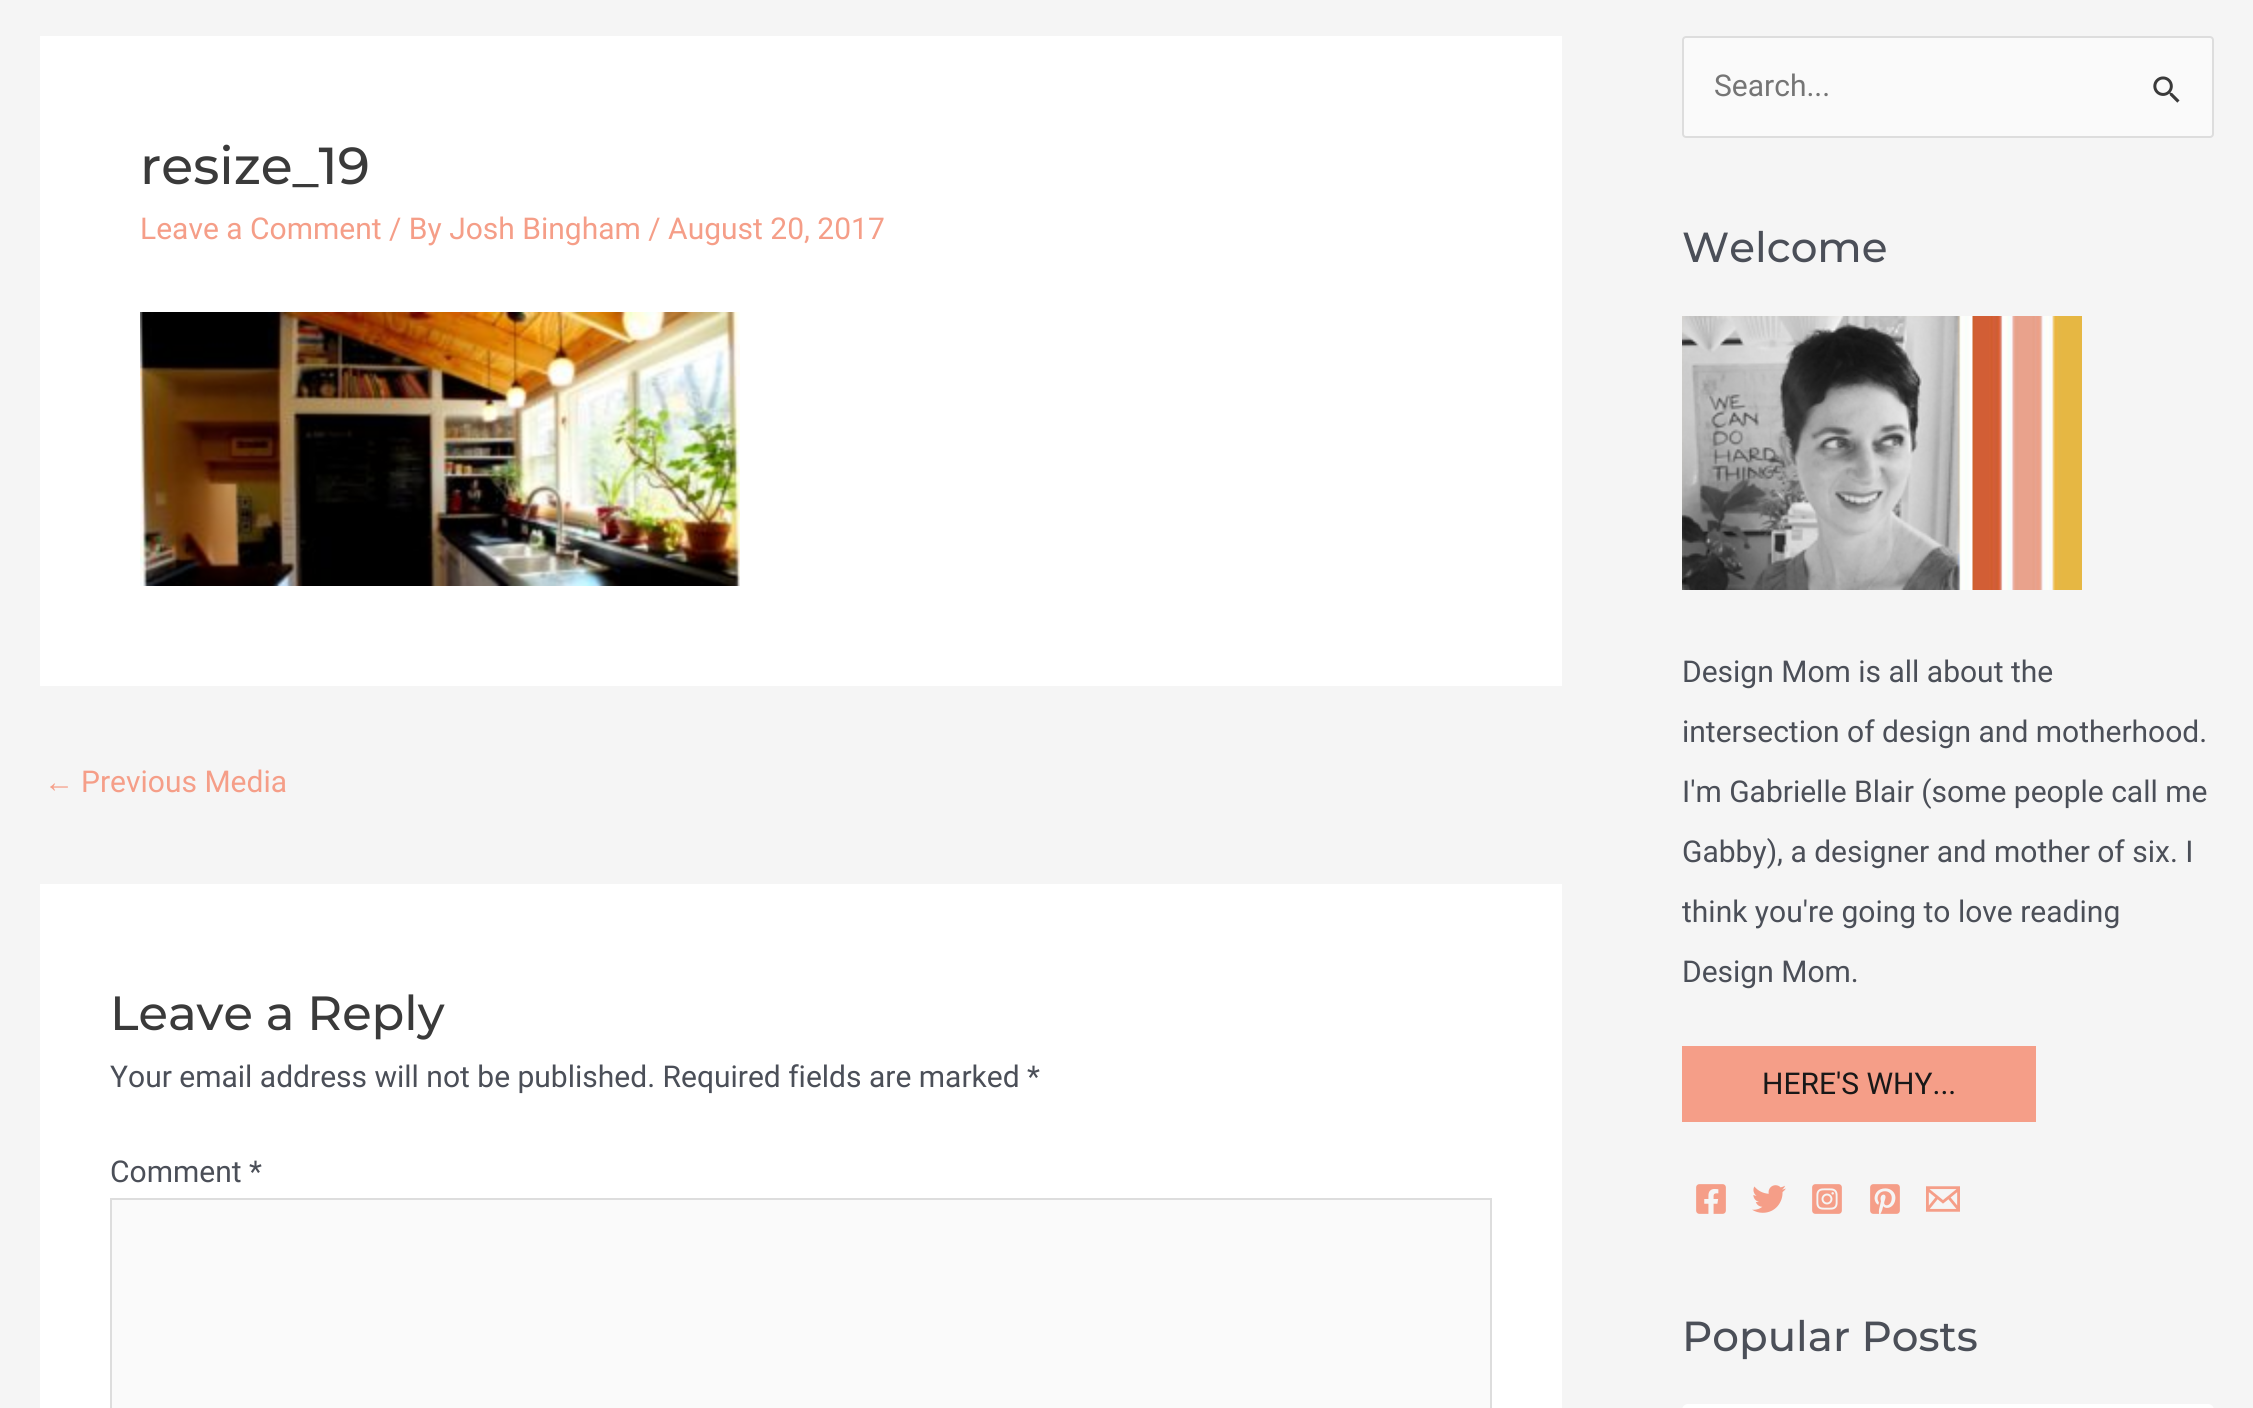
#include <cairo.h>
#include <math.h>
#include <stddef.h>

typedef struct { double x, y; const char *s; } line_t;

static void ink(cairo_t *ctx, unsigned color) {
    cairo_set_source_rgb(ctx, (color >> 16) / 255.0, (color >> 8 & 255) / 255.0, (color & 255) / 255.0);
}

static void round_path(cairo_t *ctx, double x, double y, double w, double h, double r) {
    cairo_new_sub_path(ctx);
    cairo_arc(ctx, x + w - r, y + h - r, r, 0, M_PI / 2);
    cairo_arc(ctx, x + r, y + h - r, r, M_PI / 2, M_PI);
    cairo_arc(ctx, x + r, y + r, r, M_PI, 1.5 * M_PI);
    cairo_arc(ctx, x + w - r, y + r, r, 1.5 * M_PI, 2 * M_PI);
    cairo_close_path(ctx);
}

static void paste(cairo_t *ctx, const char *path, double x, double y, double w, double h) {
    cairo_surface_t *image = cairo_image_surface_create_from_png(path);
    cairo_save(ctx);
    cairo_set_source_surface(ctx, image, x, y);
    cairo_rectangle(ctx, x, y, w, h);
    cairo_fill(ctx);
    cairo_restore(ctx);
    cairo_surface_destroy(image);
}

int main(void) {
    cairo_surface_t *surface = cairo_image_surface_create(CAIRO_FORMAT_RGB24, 2253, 1408);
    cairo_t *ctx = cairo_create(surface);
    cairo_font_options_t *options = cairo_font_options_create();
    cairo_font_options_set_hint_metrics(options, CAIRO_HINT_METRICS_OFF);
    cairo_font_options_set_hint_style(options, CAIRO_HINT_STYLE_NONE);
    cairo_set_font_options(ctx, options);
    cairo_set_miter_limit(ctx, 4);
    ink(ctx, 0xF5F5F5);
    cairo_paint(ctx);
    ink(ctx, 0xFFFFFF);
    cairo_rectangle(ctx, 40, 36, 1522, 650);
    cairo_fill(ctx);
    cairo_select_font_face(ctx, "Montserrat Thin", CAIRO_FONT_SLANT_NORMAL, CAIRO_FONT_WEIGHT_NORMAL);
    cairo_set_font_size(ctx, 52);
    ink(ctx, 0x3A3A3A);
    cairo_move_to(ctx, 140, 184);
    cairo_show_text(ctx, "resize_19");
    cairo_select_font_face(ctx, "Roboto", CAIRO_FONT_SLANT_NORMAL, CAIRO_FONT_WEIGHT_NORMAL);
    cairo_set_font_size(ctx, 30);
    ink(ctx, 0xF59E88);
    cairo_move_to(ctx, 140, 239);
    cairo_show_text(ctx, "Leave a Comment / By Josh Bingham / August 20, 2017");
    paste(ctx, "media/1.png", 140, 312, 600, 274);
    cairo_select_font_face(ctx, "Liberation Sans", CAIRO_FONT_SLANT_NORMAL, CAIRO_FONT_WEIGHT_NORMAL);
    cairo_move_to(ctx, 44, 792);
    cairo_show_text(ctx, "←");
    cairo_select_font_face(ctx, "Roboto", CAIRO_FONT_SLANT_NORMAL, CAIRO_FONT_WEIGHT_NORMAL);
    cairo_move_to(ctx, 81, 792);
    cairo_show_text(ctx, "Previous Media");
    ink(ctx, 0xFFFFFF);
    cairo_rectangle(ctx, 40, 884, 1522, 524);
    cairo_fill(ctx);
    cairo_select_font_face(ctx, "Montserrat Thin", CAIRO_FONT_SLANT_NORMAL, CAIRO_FONT_WEIGHT_NORMAL);
    cairo_set_font_size(ctx, 48);
    ink(ctx, 0x3A3A3A);
    cairo_move_to(ctx, 110, 1030);
    cairo_show_text(ctx, "Leave a Reply");
    cairo_select_font_face(ctx, "Roboto", CAIRO_FONT_SLANT_NORMAL, CAIRO_FONT_WEIGHT_NORMAL);
    cairo_set_font_size(ctx, 30);
    ink(ctx, 0x4B4F58);
    cairo_move_to(ctx, 110, 1087);
    cairo_show_text(ctx, "Your email address will not be published. Required fields are marked *");
    cairo_move_to(ctx, 110, 1182);
    cairo_show_text(ctx, "Comment *");
    ink(ctx, 0xFAFAFA);
    cairo_rectangle(ctx, 111, 1199, 1380, 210);
    cairo_fill_preserve(ctx);
    ink(ctx, 0xDDDDDD);
    cairo_stroke(ctx);
    ink(ctx, 0xFAFAFA);
    round_path(ctx, 1683, 37, 530, 100, 3);
    cairo_fill_preserve(ctx);
    ink(ctx, 0xDDDDDD);
    cairo_stroke(ctx);
    ink(ctx, 0x757575);
    cairo_move_to(ctx, 1714, 96);
    cairo_show_text(ctx, "Search...");
    paste(ctx, "media/2.png", 2153, 76, 27, 27);
    cairo_select_font_face(ctx, "Montserrat Thin", CAIRO_FONT_SLANT_NORMAL, CAIRO_FONT_WEIGHT_NORMAL);
    cairo_set_font_size(ctx, 42);
    ink(ctx, 0x4B4F58);
    cairo_move_to(ctx, 1682, 262);
    cairo_show_text(ctx, "Welcome");
    paste(ctx, "media/3.png", 1682, 316, 400, 274);
    cairo_select_font_face(ctx, "Roboto", CAIRO_FONT_SLANT_NORMAL, CAIRO_FONT_WEIGHT_NORMAL);
    cairo_set_font_size(ctx, 30);
    {
        static const line_t items[] = {
            {1682, 682, "Design Mom is all about the"},
            {1682, 742, "intersection of design and motherhood."},
            {1682, 802, "I'm Gabrielle Blair (some people call me"},
            {1682, 862, "Gabby), a designer and mother of six. I"},
            {1682, 922, "think you're going to love reading"},
            {1682, 982, "Design Mom."},
        };
        for (size_t i = 0; i < sizeof items / sizeof *items; i++) {
            cairo_move_to(ctx, items[i].x, items[i].y);
            cairo_show_text(ctx, items[i].s);
        }
    }
    ink(ctx, 0xF59E88);
    cairo_rectangle(ctx, 1682, 1046, 354, 76);
    cairo_fill(ctx);
    ink(ctx, 0x181818);
    cairo_move_to(ctx, 1762, 1094);
    cairo_show_text(ctx, "HERE'S WHY...");
    paste(ctx, "media/4.png", 1696, 1184, 30, 30);
    paste(ctx, "media/5.png", 1752, 1185, 34, 28);
    paste(ctx, "media/6.png", 1812, 1184, 30, 30);
    paste(ctx, "media/7.png", 1870, 1184, 30, 30);
    paste(ctx, "media/8.png", 1926, 1186, 34, 26);
    cairo_select_font_face(ctx, "Montserrat Thin", CAIRO_FONT_SLANT_NORMAL, CAIRO_FONT_WEIGHT_NORMAL);
    cairo_set_font_size(ctx, 42);
    ink(ctx, 0x4B4F58);
    cairo_move_to(ctx, 1682, 1351);
    cairo_show_text(ctx, "Popular Posts");
    ink(ctx, 0xFFFFFF);
    round_path(ctx, 1682, 1404, 532, 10, 6);
    cairo_fill(ctx);
    cairo_surface_write_to_png(surface, "image.png");
    cairo_font_options_destroy(options);
    cairo_destroy(ctx);
    cairo_surface_destroy(surface);
    return 0;
}
